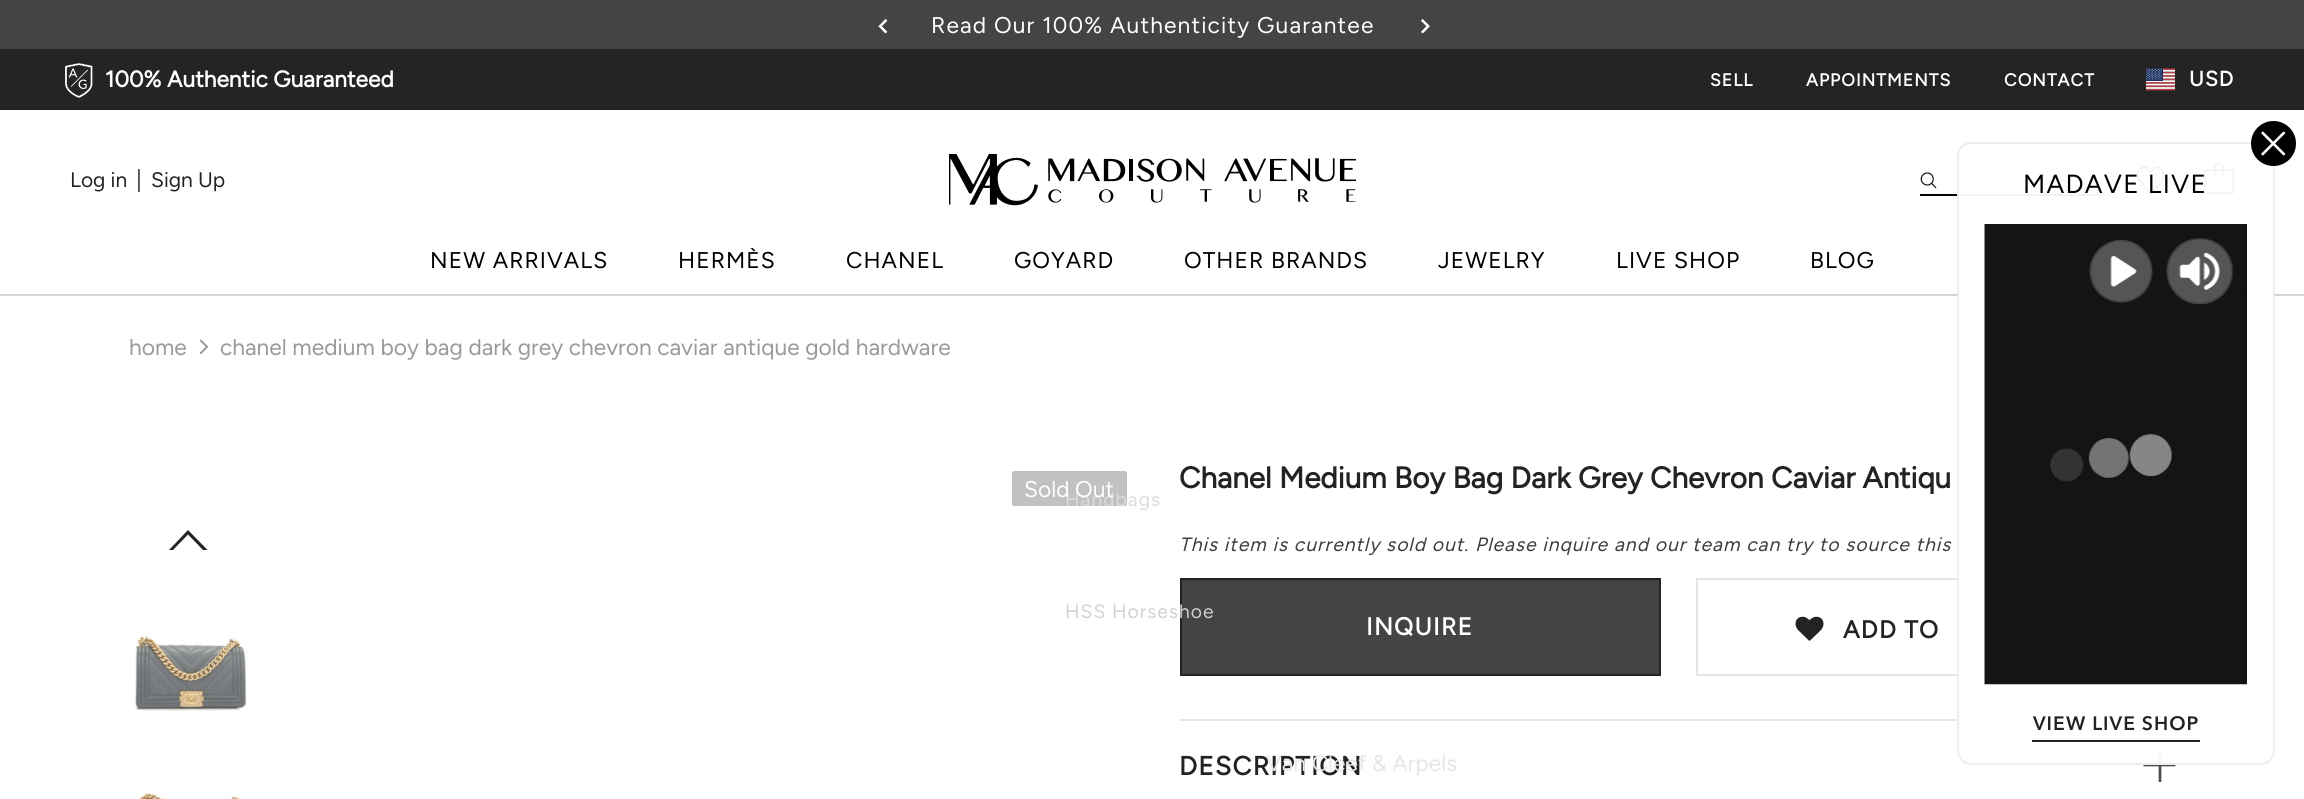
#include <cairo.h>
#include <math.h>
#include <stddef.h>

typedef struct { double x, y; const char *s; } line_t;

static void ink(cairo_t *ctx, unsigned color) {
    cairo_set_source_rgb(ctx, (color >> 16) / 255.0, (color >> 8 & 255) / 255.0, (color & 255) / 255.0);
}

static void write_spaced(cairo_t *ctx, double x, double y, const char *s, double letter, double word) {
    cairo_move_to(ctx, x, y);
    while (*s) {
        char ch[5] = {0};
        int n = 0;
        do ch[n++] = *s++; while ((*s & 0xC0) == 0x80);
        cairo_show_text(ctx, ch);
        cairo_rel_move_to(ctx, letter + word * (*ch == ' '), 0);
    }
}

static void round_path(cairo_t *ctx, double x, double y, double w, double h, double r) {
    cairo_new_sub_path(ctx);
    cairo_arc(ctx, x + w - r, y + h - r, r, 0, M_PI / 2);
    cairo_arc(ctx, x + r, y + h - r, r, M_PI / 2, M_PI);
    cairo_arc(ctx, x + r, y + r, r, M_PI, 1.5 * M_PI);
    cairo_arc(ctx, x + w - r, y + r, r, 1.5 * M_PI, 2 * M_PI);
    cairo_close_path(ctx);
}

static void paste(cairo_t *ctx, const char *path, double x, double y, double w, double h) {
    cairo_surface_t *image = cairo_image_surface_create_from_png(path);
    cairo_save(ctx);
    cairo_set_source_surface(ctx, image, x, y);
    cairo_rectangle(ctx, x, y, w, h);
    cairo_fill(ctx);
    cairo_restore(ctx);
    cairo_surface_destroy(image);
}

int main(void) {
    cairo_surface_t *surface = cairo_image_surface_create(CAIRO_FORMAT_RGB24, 2304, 799);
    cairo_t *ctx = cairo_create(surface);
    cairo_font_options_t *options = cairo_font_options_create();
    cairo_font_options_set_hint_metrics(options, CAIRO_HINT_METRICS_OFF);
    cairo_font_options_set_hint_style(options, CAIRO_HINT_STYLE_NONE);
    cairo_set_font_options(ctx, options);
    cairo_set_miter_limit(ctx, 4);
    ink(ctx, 0xFFFFFF);
    cairo_paint(ctx);
    ink(ctx, 0x444444);
    cairo_rectangle(ctx, 0, 0, 2304, 49);
    cairo_fill(ctx);
    paste(ctx, "media/1.png", 878, 19, 10, 14);
    cairo_select_font_face(ctx, "Figtree", CAIRO_FONT_SLANT_NORMAL, CAIRO_FONT_WEIGHT_NORMAL);
    cairo_set_font_size(ctx, 22.75);
    ink(ctx, 0xFFFFFF);
    write_spaced(ctx, 931, 33, "Read Our 100% Authenticity Guarantee", 1.15, 0);
    paste(ctx, "media/2.png", 1421, 19, 9, 14);
    ink(ctx, 0x242424);
    cairo_rectangle(ctx, 0, 49, 2304, 61);
    cairo_fill(ctx);
    paste(ctx, "media/3.png", 65, 63, 28, 35);
    cairo_select_font_face(ctx, "Figtree", CAIRO_FONT_SLANT_NORMAL, CAIRO_FONT_WEIGHT_BOLD);
    ink(ctx, 0xFFFFFF);
    cairo_move_to(ctx, 105, 87);
    cairo_show_text(ctx, "100% Authentic Guaranteed");
    cairo_set_font_size(ctx, 17.5);
    {
        static const line_t items[] = {
            {1710, 86, "SELL"},
            {1806, 86, "APPOINTMENTS"},
            {2004, 86, "CONTACT"},
        };
        for (size_t i = 0; i < sizeof items / sizeof *items; i++) {
            write_spaced(ctx, items[i].x, items[i].y, items[i].s, 1.05, 0);
        }
    }
    paste(ctx, "media/4.png", 2146, 68, 29, 23);
    cairo_set_font_size(ctx, 21);
    write_spaced(ctx, 2189, 86, "USD", 1.05, 0);
    ink(ctx, 0x000000);
    cairo_rectangle(ctx, 1920, 194, 182, 2);
    cairo_fill(ctx);
    paste(ctx, "media/5.png", 1920, 172, 17, 17);
    paste(ctx, "media/6.png", 2137, 166, 28, 28);
    paste(ctx, "media/7.png", 2204, 163, 31, 31);
    cairo_select_font_face(ctx, "Figtree", CAIRO_FONT_SLANT_NORMAL, CAIRO_FONT_WEIGHT_NORMAL);
    ink(ctx, 0x232323);
    cairo_move_to(ctx, 70, 187);
    cairo_show_text(ctx, "Log in");
    cairo_set_font_size(ctx, 22.75);
    ink(ctx, 0x3C3C3C);
    cairo_move_to(ctx, 136, 187);
    cairo_show_text(ctx, "|");
    cairo_set_font_size(ctx, 21);
    ink(ctx, 0x232323);
    cairo_move_to(ctx, 151, 187);
    cairo_show_text(ctx, "Sign Up");
    paste(ctx, "media/8.png", 949, 154, 407, 52);
    ink(ctx, 0xD7D4D4);
    cairo_rectangle(ctx, 0, 294, 2304, 2);
    cairo_fill(ctx);
    cairo_set_font_size(ctx, 22.75);
    ink(ctx, 0x000000);
    write_spaced(ctx, 430, 268, "NEW ARRIVALS", 1.05, 0);
    write_spaced(ctx, 678, 268, "HERMÈS", 1.05, 0);
    ink(ctx, 0x444444);
    cairo_rectangle(ctx, 1181, 579, 479, 96);
    cairo_fill_preserve(ctx);
    ink(ctx, 0x232323);
    cairo_stroke(ctx);
    cairo_set_font_size(ctx, 19.25);
    ink(ctx, 0xD1D1D1);
    write_spaced(ctx, 1065, 618, "HSS Horseshoe", 1.05, 0);
    cairo_set_font_size(ctx, 22.75);
    ink(ctx, 0x000000);
    write_spaced(ctx, 846, 268, "CHANEL", 1.05, 0);
    ink(ctx, 0xC1C1C1);
    round_path(ctx, 1012, 471, 115, 35, 2);
    cairo_fill(ctx);
    cairo_set_font_size(ctx, 19.25);
    ink(ctx, 0xDBDBDB);
    write_spaced(ctx, 1065, 506, "Handbags", 1.05, 0);
    cairo_set_font_size(ctx, 22.75);
    ink(ctx, 0x000000);
    {
        static const line_t items[] = {
            {1014, 268, "GOYARD"},
            {1184, 268, "OTHER BRANDS"},
            {1616, 268, "LIVE SHOP"},
            {1810, 268, "BLOG"},
            {1438, 268, "JEWELRY"},
        };
        for (size_t i = 0; i < sizeof items / sizeof *items; i++) {
            write_spaced(ctx, items[i].x, items[i].y, items[i].s, 1.05, 0);
        }
    }
    cairo_select_font_face(ctx, "Figtree", CAIRO_FONT_SLANT_NORMAL, CAIRO_FONT_WEIGHT_BOLD);
    cairo_set_font_size(ctx, 26.25);
    ink(ctx, 0x232323);
    write_spaced(ctx, 1179, 775, "DESCRIPTION", 1.25, 0);
    cairo_select_font_face(ctx, "Figtree", CAIRO_FONT_SLANT_NORMAL, CAIRO_FONT_WEIGHT_NORMAL);
    cairo_set_font_size(ctx, 22.75);
    ink(ctx, 0xE6E6E6);
    cairo_move_to(ctx, 1266, 771);
    cairo_show_text(ctx, "Van Cleef & Arpels");
    ink(ctx, 0x999999);
    cairo_move_to(ctx, 129, 355);
    cairo_show_text(ctx, "home");
    paste(ctx, "media/9.png", 199, 339, 10, 15);
    cairo_move_to(ctx, 220, 355);
    cairo_show_text(ctx, "chanel medium boy bag dark grey chevron caviar antique gold hardware");
    ink(ctx, 0xFFFFFF);
    cairo_move_to(ctx, 1024, 497);
    cairo_show_text(ctx, "Sold Out");
    ink(ctx, 0x232323);
    cairo_new_path(ctx);
    cairo_move_to(ctx, 188, 530);
    cairo_line_to(ctx, 169, 550);
    cairo_line_to(ctx, 173, 550);
    cairo_line_to(ctx, 188, 534.5);
    cairo_line_to(ctx, 203, 550);
    cairo_line_to(ctx, 207.5, 550);
    cairo_close_path(ctx);
    cairo_fill(ctx);
    paste(ctx, "media/10.png", 135, 635, 112, 76);
    paste(ctx, "media/11.png", 139, 792, 101, 7);
    cairo_select_font_face(ctx, "Figtree", CAIRO_FONT_SLANT_NORMAL, CAIRO_FONT_WEIGHT_BOLD);
    cairo_set_font_size(ctx, 29.75);
    cairo_move_to(ctx, 1179, 488);
    cairo_show_text(ctx, "Chanel Medium Boy Bag Dark Grey Chevron Caviar Antiqu");
    cairo_select_font_face(ctx, "Figtree", CAIRO_FONT_SLANT_ITALIC, CAIRO_FONT_WEIGHT_NORMAL);
    cairo_set_font_size(ctx, 19.25);
    ink(ctx, 0x3C3C3C);
    write_spaced(ctx, 1179, 551, "This item is currently sold out. Please inquire and our team can try to source this", 1.05, 0);
    cairo_select_font_face(ctx, "Figtree", CAIRO_FONT_SLANT_NORMAL, CAIRO_FONT_WEIGHT_BOLD);
    cairo_set_font_size(ctx, 24.5);
    ink(ctx, 0xFFFFFF);
    write_spaced(ctx, 1366, 635, "INQUIRE", 1.25, 0);
    cairo_rectangle(ctx, 1697, 579, 479, 96);
    ink(ctx, 0xE6E6E6);
    cairo_stroke(ctx);
    paste(ctx, "media/12.png", 1795, 616, 29, 25);
    ink(ctx, 0x232323);
    write_spaced(ctx, 1843, 638, "ADD TO", 1.25, 0);
    ink(ctx, 0xE6E6E6);
    cairo_rectangle(ctx, 1180, 719, 997, 2);
    cairo_fill(ctx);
    cairo_new_path(ctx);
    cairo_move_to(ctx, 2143.5, 765);
    cairo_line_to(ctx, 2175.5, 765);
    cairo_move_to(ctx, 2160, 749.5);
    cairo_line_to(ctx, 2160, 782);
    ink(ctx, 0x4D4D4D);
    cairo_set_line_width(ctx, 2.7);
    cairo_stroke(ctx);
    cairo_set_source_rgba(ctx, 1, 1, 1, 0.95);
    round_path(ctx, 1958, 143, 316, 621, 13);
    cairo_fill_preserve(ctx);
    ink(ctx, 0xEEEEEE);
    cairo_set_line_width(ctx, 2);
    cairo_stroke(ctx);
    ink(ctx, 0x000000);
    cairo_arc(ctx, 2273.5, 143.5, 22.5, 0, 2 * M_PI);
    cairo_fill(ctx);
    paste(ctx, "media/13.png", 2261, 131, 25, 25);
    cairo_select_font_face(ctx, "Figtree", CAIRO_FONT_SLANT_NORMAL, CAIRO_FONT_WEIGHT_NORMAL);
    cairo_set_font_size(ctx, 26.25);
    write_spaced(ctx, 2023, 193, "MADAVE LIVE", 1.25, 0);
    paste(ctx, "media/14.png", 1984, 224, 263, 461);
    cairo_select_font_face(ctx, "Avenir Next SemiBold", CAIRO_FONT_SLANT_NORMAL, CAIRO_FONT_WEIGHT_NORMAL);
    cairo_set_font_size(ctx, 19.25);
    ink(ctx, 0x232323);
    write_spaced(ctx, 2033, 730, "VIEW LIVE SHOP", 1.05, 0);
    ink(ctx, 0x242424);
    cairo_rectangle(ctx, 2032, 740, 168, 2);
    cairo_fill(ctx);
    cairo_surface_write_to_png(surface, "image.png");
    cairo_font_options_destroy(options);
    cairo_destroy(ctx);
    cairo_surface_destroy(surface);
    return 0;
}
